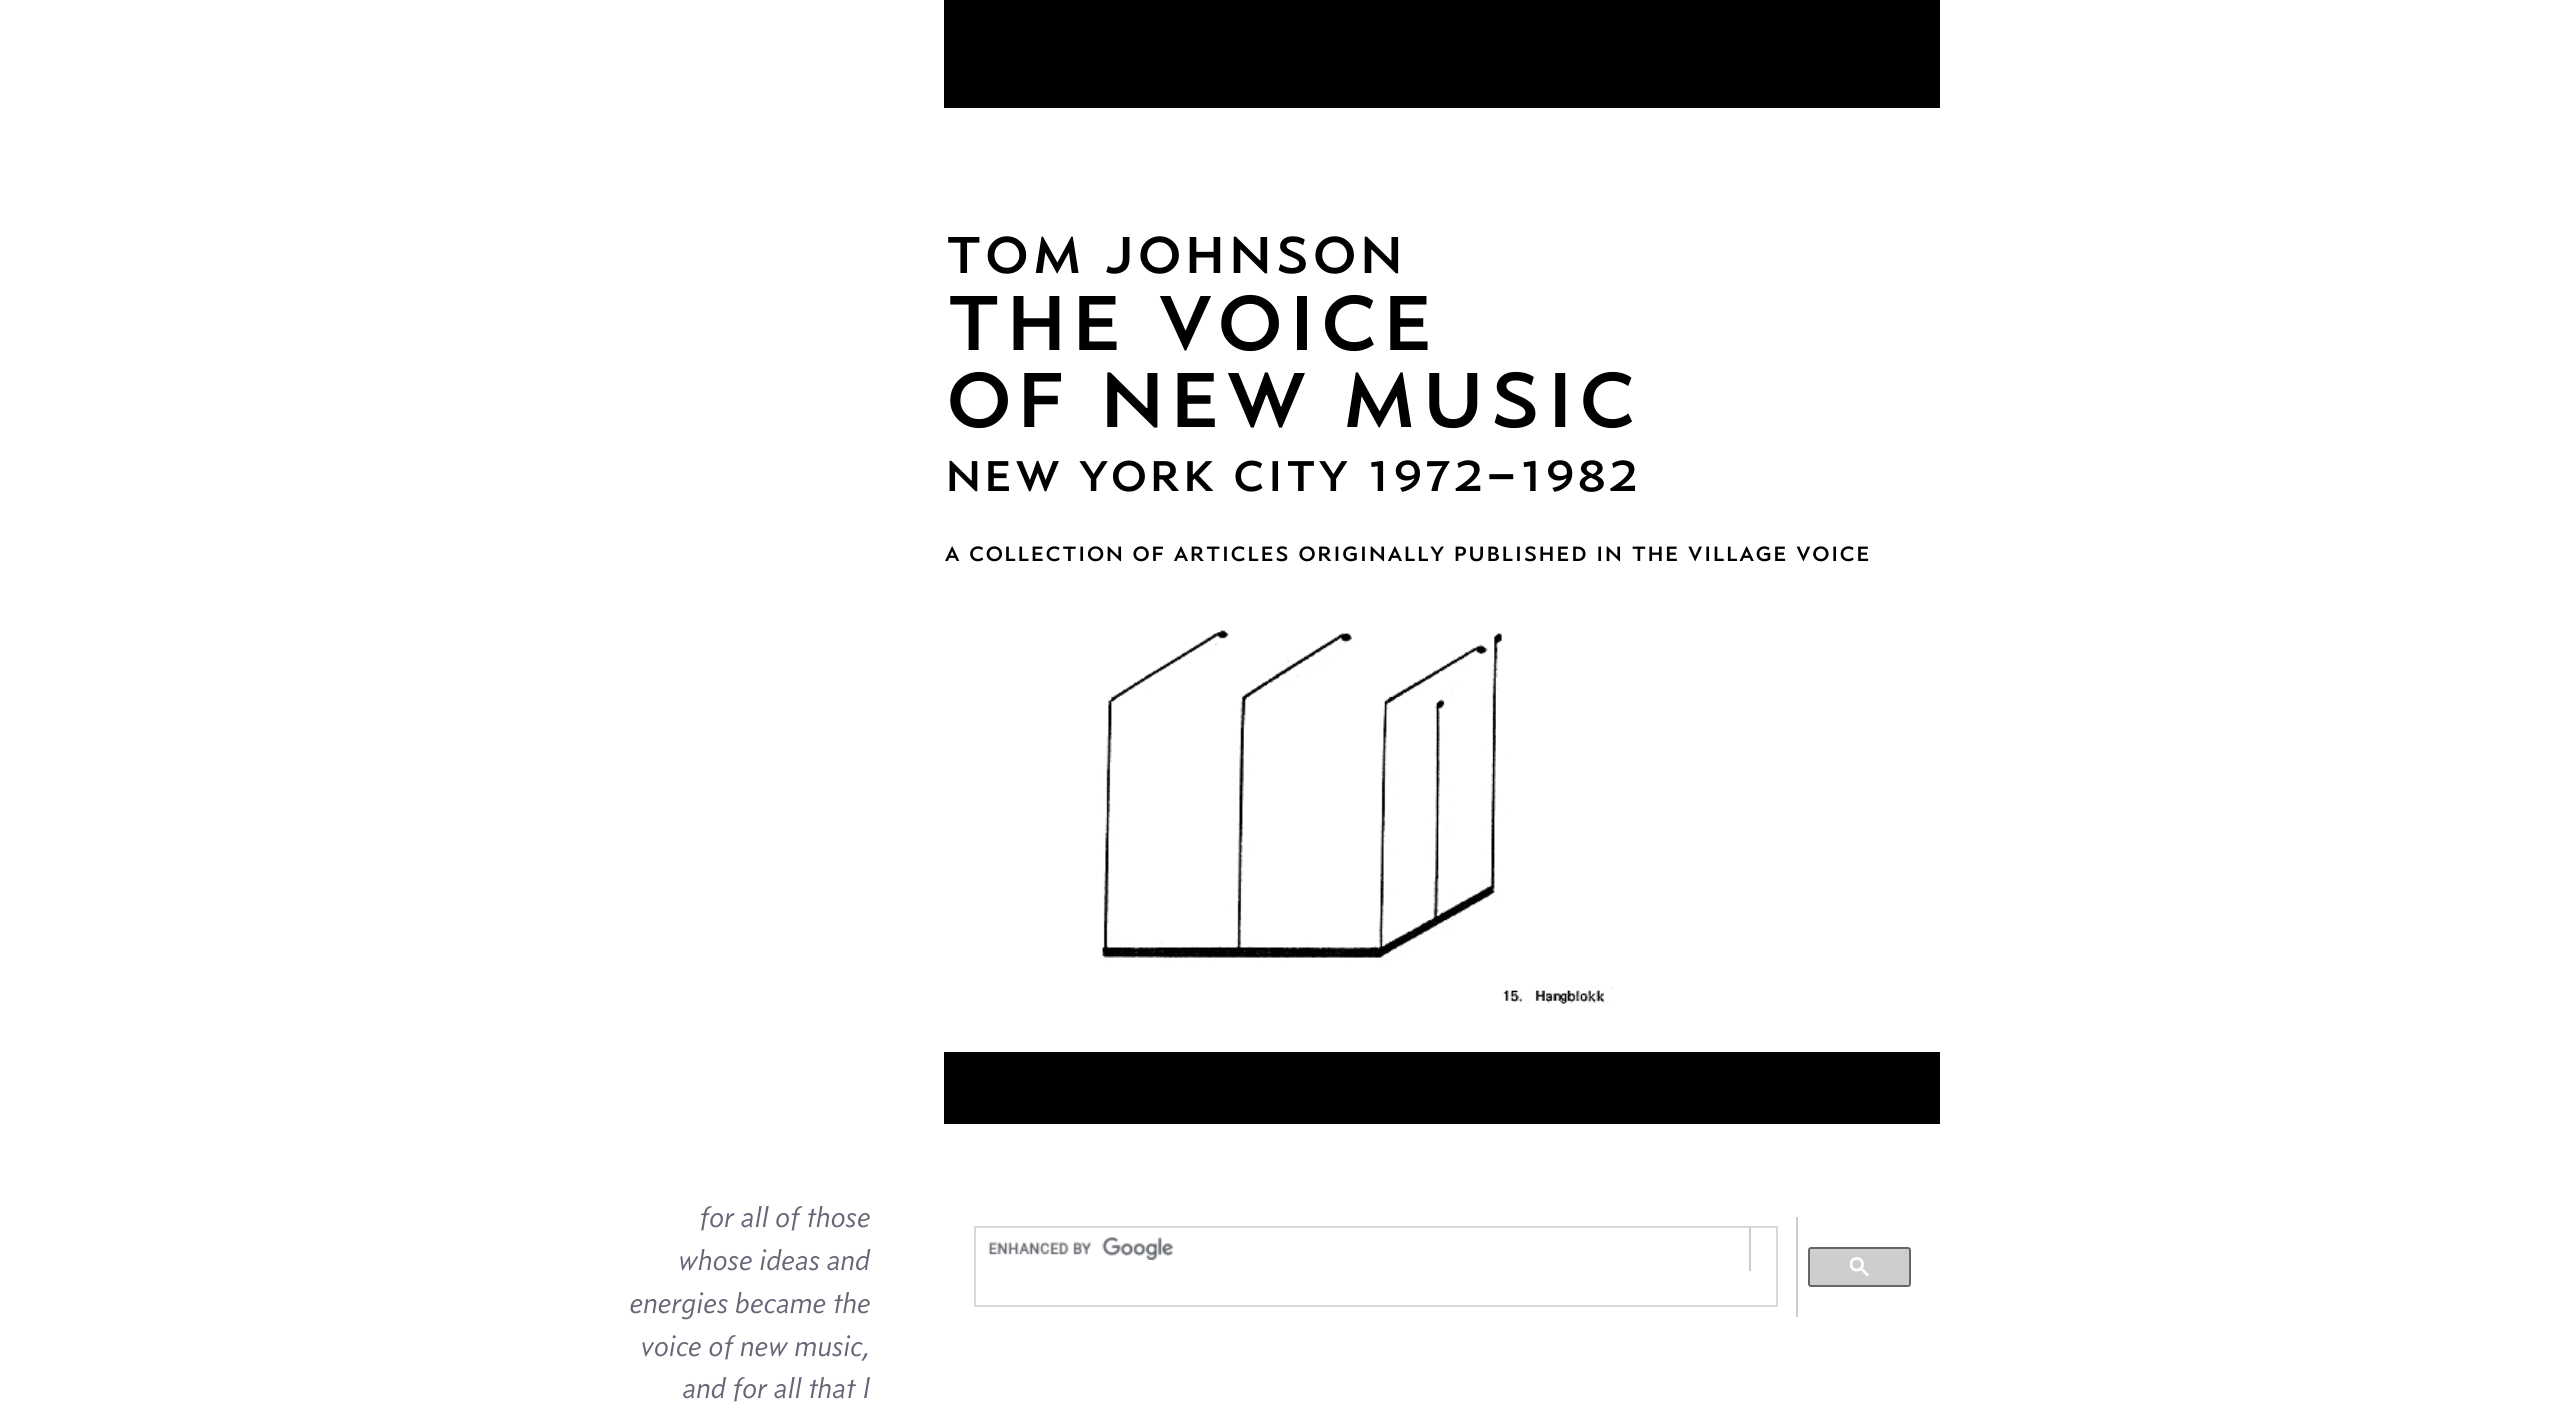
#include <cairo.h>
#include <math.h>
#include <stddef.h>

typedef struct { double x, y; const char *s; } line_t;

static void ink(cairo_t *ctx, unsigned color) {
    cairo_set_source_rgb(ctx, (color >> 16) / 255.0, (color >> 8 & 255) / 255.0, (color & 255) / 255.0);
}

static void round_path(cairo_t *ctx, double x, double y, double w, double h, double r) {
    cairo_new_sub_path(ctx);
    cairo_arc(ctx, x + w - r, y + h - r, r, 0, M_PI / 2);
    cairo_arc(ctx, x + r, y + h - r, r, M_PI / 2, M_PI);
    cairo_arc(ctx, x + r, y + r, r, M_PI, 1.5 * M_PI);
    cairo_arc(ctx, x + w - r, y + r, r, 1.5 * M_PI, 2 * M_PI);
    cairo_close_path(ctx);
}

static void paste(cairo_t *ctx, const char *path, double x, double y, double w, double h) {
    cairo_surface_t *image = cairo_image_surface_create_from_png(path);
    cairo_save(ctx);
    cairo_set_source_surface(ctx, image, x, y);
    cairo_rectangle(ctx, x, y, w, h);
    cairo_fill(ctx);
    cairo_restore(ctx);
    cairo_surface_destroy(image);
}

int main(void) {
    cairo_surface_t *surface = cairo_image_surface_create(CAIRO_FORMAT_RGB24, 2559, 1420);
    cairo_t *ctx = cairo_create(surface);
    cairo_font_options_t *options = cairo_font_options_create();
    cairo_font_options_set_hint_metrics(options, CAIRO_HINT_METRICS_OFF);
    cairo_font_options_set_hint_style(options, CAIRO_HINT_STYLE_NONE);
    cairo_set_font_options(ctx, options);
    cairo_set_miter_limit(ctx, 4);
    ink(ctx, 0xFFFFFF);
    cairo_paint(ctx);
    paste(ctx, "media/1.png", 1096, 630, 518, 374);
    ink(ctx, 0x000000);
    cairo_rectangle(ctx, 944, 0, 996, 108);
    cairo_fill(ctx);
    cairo_select_font_face(ctx, "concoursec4", CAIRO_FONT_SLANT_NORMAL, CAIRO_FONT_WEIGHT_NORMAL);
    cairo_set_font_size(ctx, 72);
    cairo_move_to(ctx, 944, 273);
    cairo_show_text(ctx, "tom johnson");
    cairo_set_font_size(ctx, 108);
    cairo_move_to(ctx, 944, 350);
    cairo_show_text(ctx, "the voice");
    cairo_move_to(ctx, 944, 427);
    cairo_show_text(ctx, "of new music");
    cairo_set_font_size(ctx, 59.75);
    cairo_move_to(ctx, 944, 491);
    cairo_show_text(ctx, "new york city 1972–1982");
    cairo_set_font_size(ctx, 28.8);
    cairo_move_to(ctx, 944, 561);
    cairo_show_text(ctx, "a collection of articles originally published in the village voice");
    cairo_rectangle(ctx, 944, 1052, 996, 72);
    cairo_fill(ctx);
    cairo_select_font_face(ctx, "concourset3 Light", CAIRO_FONT_SLANT_ITALIC, CAIRO_FONT_WEIGHT_NORMAL);
    cairo_set_font_size(ctx, 30.5);
    ink(ctx, 0x666677);
    {
        static const line_t items[] = {
            {700, 1227, "for all of those"},
            {679, 1270, "whose ideas and"},
            {630, 1313, "energies became the"},
            {641, 1356, "voice of new music,"},
            {683, 1398, "and for all that I"},
        };
        for (size_t i = 0; i < sizeof items / sizeof *items; i++) {
            cairo_move_to(ctx, items[i].x, items[i].y);
            cairo_show_text(ctx, items[i].s);
        }
    }
    cairo_rectangle(ctx, 975, 1227, 802, 79);
    ink(ctx, 0xD9D9D9);
    cairo_stroke(ctx);
    paste(ctx, "media/2.png", 988, 1237, 185, 23);
    ink(ctx, 0xCCCCCC);
    cairo_rectangle(ctx, 1749, 1227, 2, 44);
    cairo_fill(ctx);
    cairo_rectangle(ctx, 1796, 1217, 2, 100);
    cairo_fill(ctx);
    ink(ctx, 0xCECECE);
    round_path(ctx, 1809, 1248, 101, 38, 2);
    cairo_fill_preserve(ctx);
    ink(ctx, 0x666666);
    cairo_stroke(ctx);
    paste(ctx, "media/3.png", 1850, 1257, 19, 20);
    cairo_surface_write_to_png(surface, "image.png");
    cairo_font_options_destroy(options);
    cairo_destroy(ctx);
    cairo_surface_destroy(surface);
    return 0;
}
